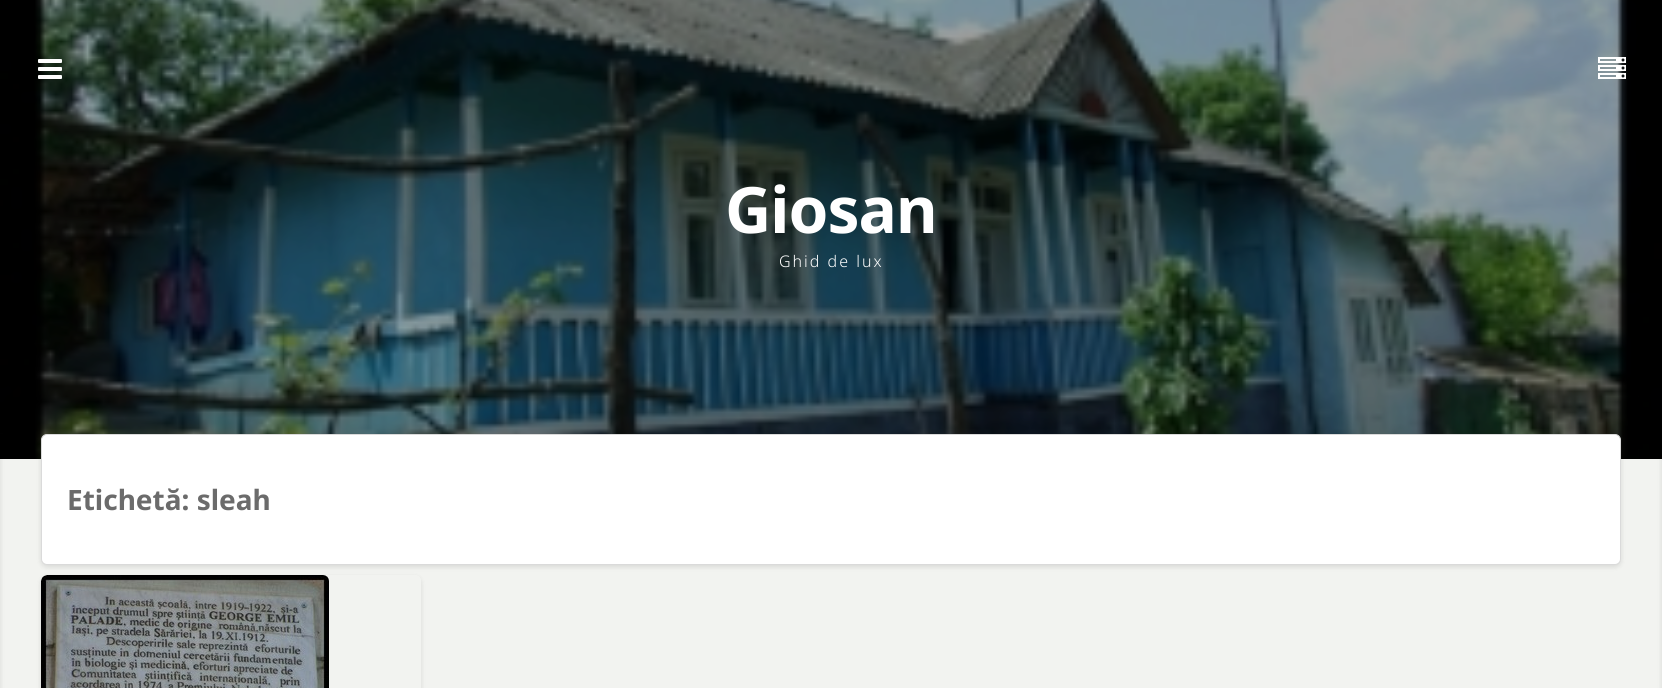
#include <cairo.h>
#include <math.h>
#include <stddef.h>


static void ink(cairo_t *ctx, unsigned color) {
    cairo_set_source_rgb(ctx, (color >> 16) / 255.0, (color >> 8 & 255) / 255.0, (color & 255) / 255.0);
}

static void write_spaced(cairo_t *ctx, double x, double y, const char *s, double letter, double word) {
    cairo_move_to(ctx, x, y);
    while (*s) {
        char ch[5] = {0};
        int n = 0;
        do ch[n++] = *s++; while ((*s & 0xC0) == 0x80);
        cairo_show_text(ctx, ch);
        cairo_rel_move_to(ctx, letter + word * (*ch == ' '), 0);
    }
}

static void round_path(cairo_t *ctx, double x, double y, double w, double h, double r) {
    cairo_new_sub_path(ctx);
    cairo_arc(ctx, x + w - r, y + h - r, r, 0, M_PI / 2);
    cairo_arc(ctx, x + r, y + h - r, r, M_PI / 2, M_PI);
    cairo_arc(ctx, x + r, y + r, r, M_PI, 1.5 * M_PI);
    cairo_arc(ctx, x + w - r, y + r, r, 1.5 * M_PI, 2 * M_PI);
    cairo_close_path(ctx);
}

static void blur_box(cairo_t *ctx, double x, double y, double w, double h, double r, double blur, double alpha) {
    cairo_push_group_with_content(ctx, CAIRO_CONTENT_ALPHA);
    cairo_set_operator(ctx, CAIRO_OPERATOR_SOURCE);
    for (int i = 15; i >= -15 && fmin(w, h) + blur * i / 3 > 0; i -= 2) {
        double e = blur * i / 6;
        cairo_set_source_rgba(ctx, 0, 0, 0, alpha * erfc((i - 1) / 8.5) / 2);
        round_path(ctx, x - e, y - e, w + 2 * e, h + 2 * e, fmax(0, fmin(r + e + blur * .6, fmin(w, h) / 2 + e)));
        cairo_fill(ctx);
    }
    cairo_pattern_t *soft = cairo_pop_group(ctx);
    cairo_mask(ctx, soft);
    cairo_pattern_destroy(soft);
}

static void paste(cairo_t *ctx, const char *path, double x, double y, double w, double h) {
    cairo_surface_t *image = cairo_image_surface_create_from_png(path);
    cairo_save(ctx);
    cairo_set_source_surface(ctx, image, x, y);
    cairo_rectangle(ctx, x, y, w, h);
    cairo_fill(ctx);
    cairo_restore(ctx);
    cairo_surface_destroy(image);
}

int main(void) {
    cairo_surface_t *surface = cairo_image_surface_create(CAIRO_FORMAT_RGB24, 1662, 688);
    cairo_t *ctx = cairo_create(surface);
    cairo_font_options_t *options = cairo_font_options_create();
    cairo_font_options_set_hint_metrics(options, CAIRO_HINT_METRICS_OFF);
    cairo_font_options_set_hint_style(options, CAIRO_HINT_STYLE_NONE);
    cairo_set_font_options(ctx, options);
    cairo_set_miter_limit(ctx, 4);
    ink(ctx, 0xF2F3F0);
    cairo_paint(ctx);
    paste(ctx, "media/3.png", 0, 0, 1662, 459);
    paste(ctx, "media/1.png", 1598, 57, 28, 22);
    paste(ctx, "media/2.png", 38, 59, 24, 20);
    ink(ctx, 0x000000);
    blur_box(ctx, -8, 2, 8, 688, 0, 2.5, 0.11);
    cairo_select_font_face(ctx, "Noto Sans", CAIRO_FONT_SLANT_NORMAL, CAIRO_FONT_WEIGHT_BOLD);
    cairo_set_font_size(ctx, 64);
    ink(ctx, 0xFFFFFF);
    write_spaced(ctx, 725, 233, "Giosan", -1, 0);
    cairo_select_font_face(ctx, "Noto Sans Light", CAIRO_FONT_SLANT_NORMAL, CAIRO_FONT_WEIGHT_NORMAL);
    cairo_set_font_size(ctx, 16);
    write_spaced(ctx, 779, 267, "Ghid de lux", 2, 0);
    ink(ctx, 0x000000);
    blur_box(ctx, 41, 436, 1580, 131, 6, 2.5, 0.11);
    ink(ctx, 0xFFFFFF);
    round_path(ctx, 41.5, 434.5, 1579, 130, 5.5);
    cairo_fill_preserve(ctx);
    ink(ctx, 0xDADADA);
    cairo_set_line_width(ctx, 1);
    cairo_stroke(ctx);
    cairo_select_font_face(ctx, "Noto Sans", CAIRO_FONT_SLANT_NORMAL, CAIRO_FONT_WEIGHT_BOLD);
    cairo_set_font_size(ctx, 28);
    ink(ctx, 0x6B6B6B);
    cairo_move_to(ctx, 67, 510);
    cairo_show_text(ctx, "Etichetă: sleah");
    cairo_save(ctx);
    cairo_set_fill_rule(ctx, CAIRO_FILL_RULE_EVEN_ODD);
    cairo_new_path(ctx);
    cairo_move_to(ctx, 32, 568);
    cairo_line_to(ctx, 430, 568);
    cairo_line_to(ctx, 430, 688);
    cairo_line_to(ctx, 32, 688);
    cairo_close_path(ctx);
    cairo_move_to(ctx, 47, 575);
    cairo_line_to(ctx, 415, 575);
    cairo_curve_to(ctx, 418.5, 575, 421, 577.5, 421, 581);
    cairo_line_to(ctx, 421, 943);
    cairo_curve_to(ctx, 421, 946.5, 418.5, 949, 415, 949);
    cairo_line_to(ctx, 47, 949);
    cairo_curve_to(ctx, 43.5, 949, 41, 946.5, 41, 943);
    cairo_line_to(ctx, 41, 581);
    cairo_curve_to(ctx, 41, 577.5, 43.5, 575, 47, 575);
    cairo_close_path(ctx);
    cairo_clip(ctx);
    ink(ctx, 0x000000);
    blur_box(ctx, 41, 577, 380, 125, 6, 2.5, 0.11);
    cairo_restore(ctx);
    paste(ctx, "media/4.png", 41, 575, 288, 113);
    ink(ctx, 0x000000);
    blur_box(ctx, 1662, 2, 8, 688, 0, 2.5, 0.11);
    cairo_surface_write_to_png(surface, "image.png");
    cairo_font_options_destroy(options);
    cairo_destroy(ctx);
    cairo_surface_destroy(surface);
    return 0;
}
